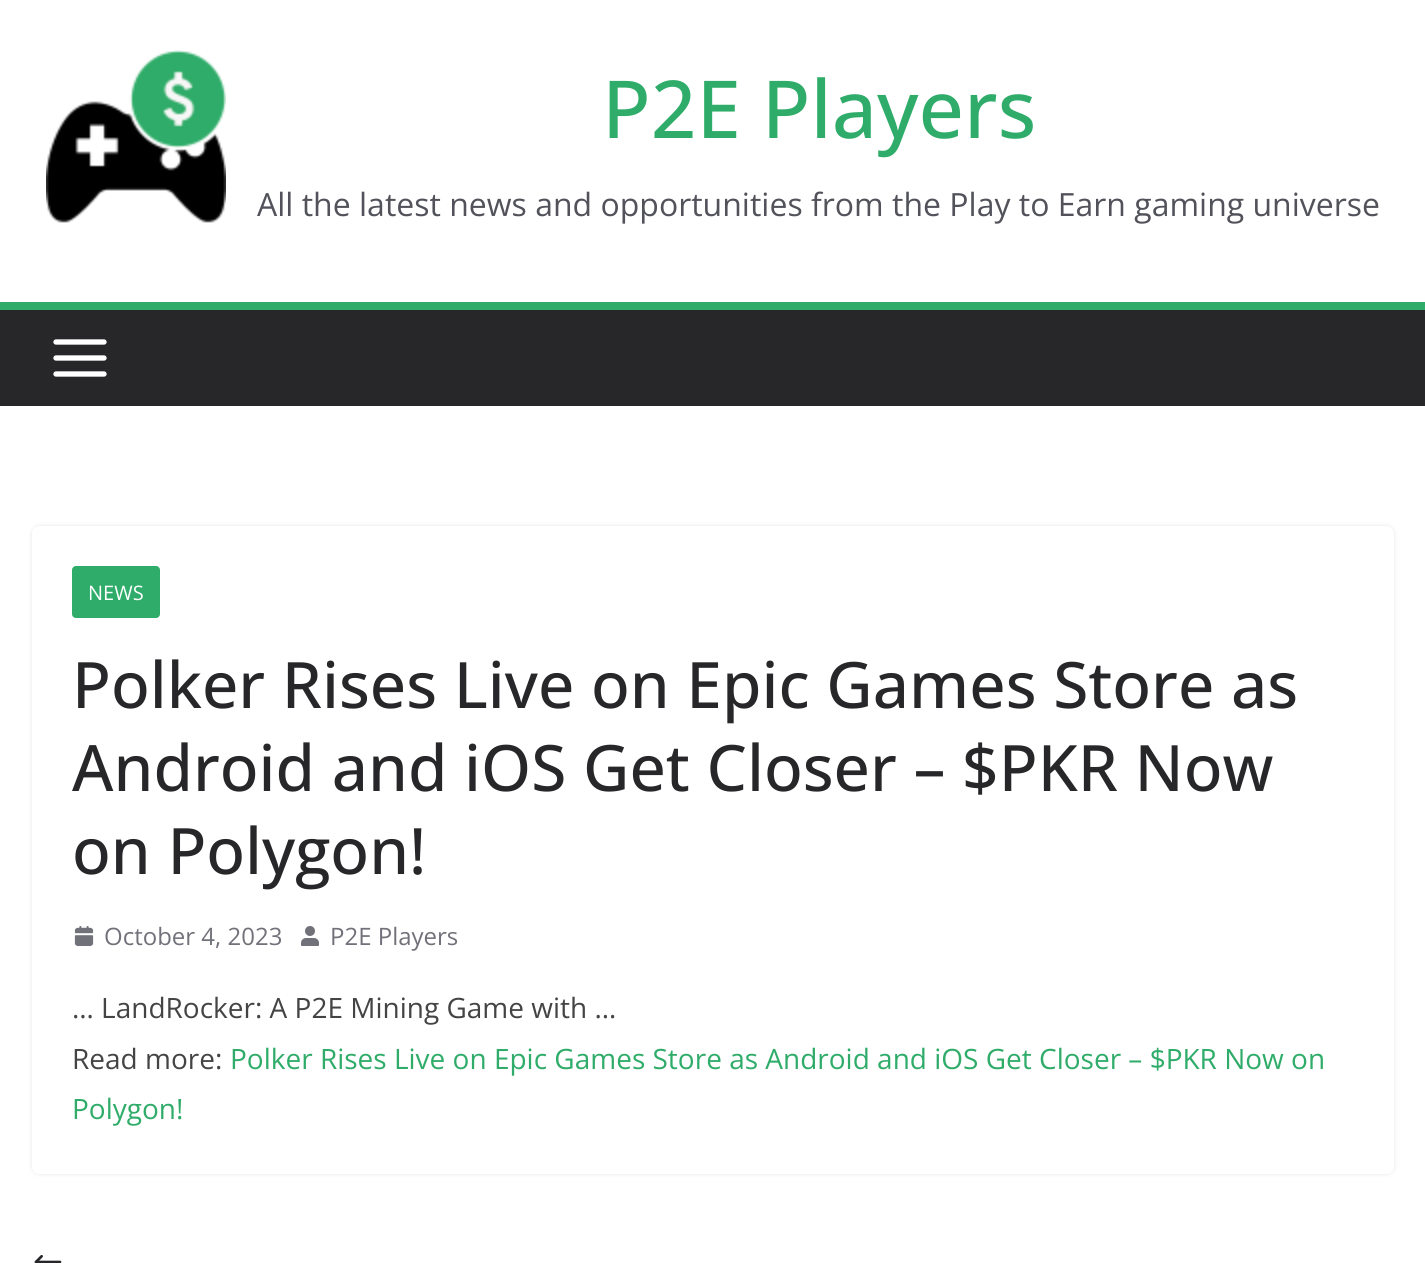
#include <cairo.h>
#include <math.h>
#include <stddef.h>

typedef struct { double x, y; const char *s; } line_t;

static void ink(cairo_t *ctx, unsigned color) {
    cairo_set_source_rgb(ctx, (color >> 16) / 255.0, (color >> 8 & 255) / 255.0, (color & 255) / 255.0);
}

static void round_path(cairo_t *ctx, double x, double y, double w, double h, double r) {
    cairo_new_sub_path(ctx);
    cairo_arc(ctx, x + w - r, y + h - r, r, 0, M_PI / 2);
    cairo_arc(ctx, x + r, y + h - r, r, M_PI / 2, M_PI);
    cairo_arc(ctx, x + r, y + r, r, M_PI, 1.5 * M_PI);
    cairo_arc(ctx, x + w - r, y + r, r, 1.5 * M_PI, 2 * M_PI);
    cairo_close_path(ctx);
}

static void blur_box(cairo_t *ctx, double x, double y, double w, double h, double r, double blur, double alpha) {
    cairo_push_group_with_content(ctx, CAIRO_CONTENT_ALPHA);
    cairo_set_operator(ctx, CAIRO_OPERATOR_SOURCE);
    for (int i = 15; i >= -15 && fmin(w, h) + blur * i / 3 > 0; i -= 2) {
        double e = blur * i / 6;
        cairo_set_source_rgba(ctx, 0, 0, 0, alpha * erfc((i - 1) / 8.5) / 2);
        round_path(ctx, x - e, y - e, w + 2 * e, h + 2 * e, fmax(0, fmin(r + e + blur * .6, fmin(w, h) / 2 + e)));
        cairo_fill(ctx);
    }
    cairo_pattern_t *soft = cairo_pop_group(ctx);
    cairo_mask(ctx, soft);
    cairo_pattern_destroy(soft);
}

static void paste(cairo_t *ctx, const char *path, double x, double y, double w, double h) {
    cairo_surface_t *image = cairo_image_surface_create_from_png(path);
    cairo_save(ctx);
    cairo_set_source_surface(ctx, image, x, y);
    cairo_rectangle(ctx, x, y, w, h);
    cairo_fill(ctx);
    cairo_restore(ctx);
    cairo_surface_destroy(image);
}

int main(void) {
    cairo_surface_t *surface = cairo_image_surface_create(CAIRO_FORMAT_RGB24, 1425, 1263);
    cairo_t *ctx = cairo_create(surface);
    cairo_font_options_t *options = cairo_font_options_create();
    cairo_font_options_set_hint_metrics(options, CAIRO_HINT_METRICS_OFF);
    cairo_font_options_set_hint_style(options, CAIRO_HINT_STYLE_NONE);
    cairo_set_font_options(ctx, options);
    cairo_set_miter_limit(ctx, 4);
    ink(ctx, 0xFFFFFF);
    cairo_paint(ctx);
    paste(ctx, "media/1.png", 46, 50, 180, 173);
    cairo_select_font_face(ctx, "Open Sans Medium", CAIRO_FONT_SLANT_NORMAL, CAIRO_FONT_WEIGHT_NORMAL);
    cairo_set_font_size(ctx, 80);
    ink(ctx, 0x2FAC69);
    cairo_move_to(ctx, 602, 138);
    cairo_show_text(ctx, "P2E Players");
    cairo_select_font_face(ctx, "Open Sans", CAIRO_FONT_SLANT_NORMAL, CAIRO_FONT_WEIGHT_NORMAL);
    cairo_set_font_size(ctx, 32);
    ink(ctx, 0x52525B);
    cairo_move_to(ctx, 257, 216);
    cairo_show_text(ctx, "All the latest news and opportunities from the Play to Earn gaming universe");
    ink(ctx, 0x27272A);
    cairo_rectangle(ctx, 0, 310, 1425, 96);
    cairo_fill(ctx);
    ink(ctx, 0x2FAC69);
    cairo_rectangle(ctx, 0, 302, 1425, 8);
    cairo_fill(ctx);
    paste(ctx, "media/2.png", 53, 339, 54, 38);
    cairo_save(ctx);
    cairo_set_fill_rule(ctx, CAIRO_FILL_RULE_EVEN_ODD);
    cairo_new_path(ctx);
    cairo_move_to(ctx, 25, 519);
    cairo_line_to(ctx, 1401, 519);
    cairo_line_to(ctx, 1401, 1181);
    cairo_line_to(ctx, 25, 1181);
    cairo_close_path(ctx);
    cairo_move_to(ctx, 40, 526);
    cairo_line_to(ctx, 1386, 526);
    cairo_curve_to(ctx, 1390.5, 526, 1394, 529.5, 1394, 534);
    cairo_line_to(ctx, 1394, 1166);
    cairo_curve_to(ctx, 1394, 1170.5, 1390.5, 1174, 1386, 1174);
    cairo_line_to(ctx, 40, 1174);
    cairo_curve_to(ctx, 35.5, 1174, 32, 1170.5, 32, 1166);
    cairo_line_to(ctx, 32, 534);
    cairo_curve_to(ctx, 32, 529.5, 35.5, 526, 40, 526);
    cairo_close_path(ctx);
    cairo_clip(ctx);
    ink(ctx, 0xE4E4E7);
    blur_box(ctx, 32, 526, 1362, 648, 8, 2, 1);
    cairo_restore(ctx);
    round_path(ctx, 72, 566, 88, 52, 4);
    cairo_fill(ctx);
    cairo_set_font_size(ctx, 20);
    ink(ctx, 0xFFFFFF);
    cairo_move_to(ctx, 88, 600);
    cairo_show_text(ctx, "NEWS");
    cairo_select_font_face(ctx, "Open Sans Medium", CAIRO_FONT_SLANT_NORMAL, CAIRO_FONT_WEIGHT_NORMAL);
    cairo_set_font_size(ctx, 64);
    ink(ctx, 0x27272A);
    {
        static const line_t items[] = {
            {72, 708, "Polker Rises Live on Epic Games Store as"},
            {72, 791, "Android and iOS Get Closer – $PKR Now"},
            {72, 874, "on Polygon!"},
        };
        for (size_t i = 0; i < sizeof items / sizeof *items; i++) {
            cairo_move_to(ctx, items[i].x, items[i].y);
            cairo_show_text(ctx, items[i].s);
        }
    }
    paste(ctx, "media/3.png", 74, 926, 20, 20);
    cairo_select_font_face(ctx, "Open Sans", CAIRO_FONT_SLANT_NORMAL, CAIRO_FONT_WEIGHT_NORMAL);
    cairo_set_font_size(ctx, 24);
    ink(ctx, 0x71717A);
    cairo_move_to(ctx, 104, 945);
    cairo_show_text(ctx, "October 4, 2023");
    paste(ctx, "media/4.png", 301, 926, 18, 20);
    cairo_move_to(ctx, 330, 945);
    cairo_show_text(ctx, "P2E Players");
    cairo_set_font_size(ctx, 28);
    ink(ctx, 0x444444);
    cairo_move_to(ctx, 72, 1018);
    cairo_show_text(ctx, "… LandRocker: A P2E Mining Game with …");
    cairo_move_to(ctx, 72, 1069);
    cairo_show_text(ctx, "Read more:");
    ink(ctx, 0x2FAC69);
    cairo_move_to(ctx, 230, 1069);
    cairo_show_text(ctx, "Polker Rises Live on Epic Games Store as Android and iOS Get Closer – $PKR Now on");
    cairo_move_to(ctx, 72, 1119);
    cairo_show_text(ctx, "Polygon!");
    paste(ctx, "media/5.png", 34, 1255, 28, 8);
    cairo_surface_write_to_png(surface, "image.png");
    cairo_font_options_destroy(options);
    cairo_destroy(ctx);
    cairo_surface_destroy(surface);
    return 0;
}
